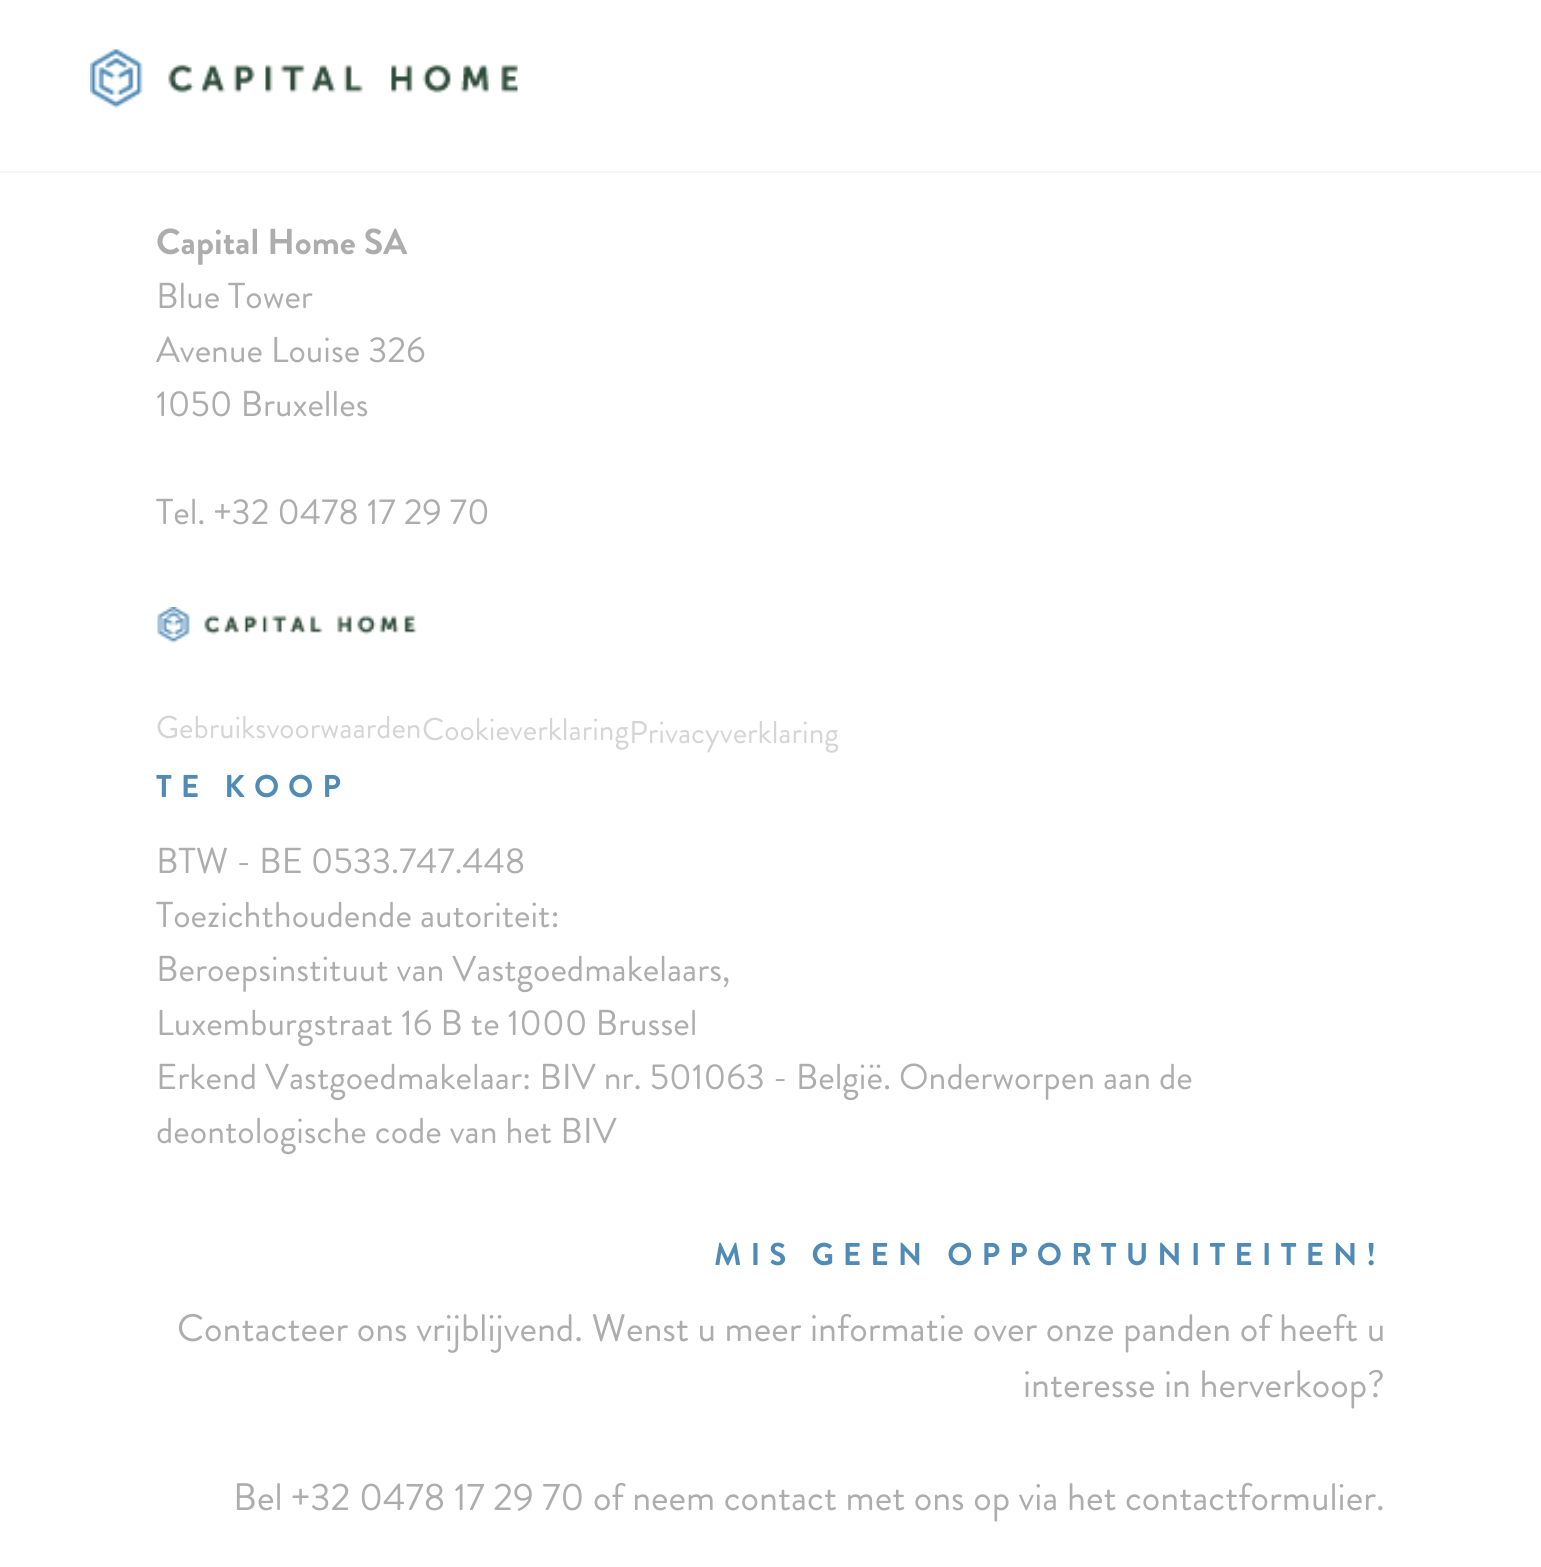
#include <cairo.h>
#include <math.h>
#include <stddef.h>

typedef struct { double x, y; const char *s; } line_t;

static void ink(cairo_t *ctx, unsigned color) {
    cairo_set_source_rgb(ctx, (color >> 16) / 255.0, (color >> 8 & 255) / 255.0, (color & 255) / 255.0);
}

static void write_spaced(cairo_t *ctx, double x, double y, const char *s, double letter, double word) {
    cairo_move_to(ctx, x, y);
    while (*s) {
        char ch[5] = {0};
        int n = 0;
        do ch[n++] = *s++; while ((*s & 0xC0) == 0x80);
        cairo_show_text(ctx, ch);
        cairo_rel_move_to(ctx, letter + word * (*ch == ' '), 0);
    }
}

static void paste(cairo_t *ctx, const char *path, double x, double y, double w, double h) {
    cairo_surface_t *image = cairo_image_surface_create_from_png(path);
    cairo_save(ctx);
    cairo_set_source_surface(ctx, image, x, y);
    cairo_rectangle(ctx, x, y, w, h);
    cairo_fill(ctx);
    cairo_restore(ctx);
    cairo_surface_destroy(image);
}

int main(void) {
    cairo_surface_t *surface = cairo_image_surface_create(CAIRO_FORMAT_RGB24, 1541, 1567);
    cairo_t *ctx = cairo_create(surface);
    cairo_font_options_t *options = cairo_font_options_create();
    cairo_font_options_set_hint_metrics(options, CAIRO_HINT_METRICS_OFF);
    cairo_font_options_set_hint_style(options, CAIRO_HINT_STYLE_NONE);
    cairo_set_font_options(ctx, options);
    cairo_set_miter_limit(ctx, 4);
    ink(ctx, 0xFFFFFF);
    cairo_paint(ctx);
    ink(ctx, 0xF5F5F5);
    cairo_rectangle(ctx, 0, 171, 1541, 2);
    cairo_fill(ctx);
    paste(ctx, "media/1.png", 90, 49, 428, 59);
    cairo_select_font_face(ctx, "Brandon Grotesque", CAIRO_FONT_SLANT_NORMAL, CAIRO_FONT_WEIGHT_BOLD);
    cairo_set_font_size(ctx, 36);
    ink(ctx, 0xADADAD);
    cairo_move_to(ctx, 156, 254);
    cairo_show_text(ctx, "Capital Home SA");
    cairo_select_font_face(ctx, "Brandon Grotesque", CAIRO_FONT_SLANT_NORMAL, CAIRO_FONT_WEIGHT_NORMAL);
    {
        static const line_t items[] = {
            {156, 308, "Blue Tower"},
            {156, 362, "Avenue Louise 326"},
            {156, 416, "1050 Bruxelles"},
            {156, 524, "Tel. +32 0478 17 29 70"},
        };
        for (size_t i = 0; i < sizeof items / sizeof *items; i++) {
            cairo_move_to(ctx, items[i].x, items[i].y);
            cairo_show_text(ctx, items[i].s);
        }
    }
    paste(ctx, "media/2.png", 157, 607, 260, 36);
    cairo_set_font_size(ctx, 31.5);
    ink(ctx, 0xD6D5D5);
    {
        static const line_t items[] = {
            {156, 738, "Gebruiksvoorwaarden"},
            {422, 740, "Cookieverklaring"},
            {629, 743, "Privacyverklaring"},
        };
        for (size_t i = 0; i < sizeof items / sizeof *items; i++) {
            cairo_move_to(ctx, items[i].x, items[i].y);
            cairo_show_text(ctx, items[i].s);
        }
    }
    cairo_select_font_face(ctx, "Brandon Grotesque", CAIRO_FONT_SLANT_NORMAL, CAIRO_FONT_WEIGHT_BOLD);
    ink(ctx, 0x508BB6);
    write_spaced(ctx, 156, 797, "TE KOOP", 9, 0);
    cairo_select_font_face(ctx, "Brandon Grotesque", CAIRO_FONT_SLANT_NORMAL, CAIRO_FONT_WEIGHT_NORMAL);
    cairo_set_font_size(ctx, 36);
    ink(ctx, 0xADADAD);
    {
        static const line_t items[] = {
            {156, 873, "BTW - BE 0533.747.448"},
            {156, 927, "Toezichthoudende autoriteit:"},
            {156, 981, "Beroepsinstituut van Vastgoedmakelaars,"},
            {156, 1035, "Luxemburgstraat 16 B te 1000 Brussel"},
            {156, 1089, "Erkend Vastgoedmakelaar: BIV nr. 501063 - België. Onderworpen aan de"},
            {156, 1143, "deontologische code van het BIV"},
        };
        for (size_t i = 0; i < sizeof items / sizeof *items; i++) {
            cairo_move_to(ctx, items[i].x, items[i].y);
            cairo_show_text(ctx, items[i].s);
        }
    }
    cairo_select_font_face(ctx, "Brandon Grotesque", CAIRO_FONT_SLANT_NORMAL, CAIRO_FONT_WEIGHT_BOLD);
    cairo_set_font_size(ctx, 31.5);
    ink(ctx, 0x508BB6);
    write_spaced(ctx, 714, 1265, "MIS GEEN OPPORTUNITEITEN!", 9, 0);
    cairo_select_font_face(ctx, "Brandon Grotesque", CAIRO_FONT_SLANT_NORMAL, CAIRO_FONT_WEIGHT_NORMAL);
    cairo_set_font_size(ctx, 38.25);
    ink(ctx, 0xADADAD);
    {
        static const line_t items[] = {
            {177, 1341, "Contacteer ons vrijblijvend. Wenst u meer informatie over onze panden of heeft u"},
            {1023, 1397, "interesse in herverkoop?"},
            {233, 1510, "Bel +32 0478 17 29 70 of neem contact met ons op via het contactformulier."},
        };
        for (size_t i = 0; i < sizeof items / sizeof *items; i++) {
            cairo_move_to(ctx, items[i].x, items[i].y);
            cairo_show_text(ctx, items[i].s);
        }
    }
    cairo_surface_write_to_png(surface, "image.png");
    cairo_font_options_destroy(options);
    cairo_destroy(ctx);
    cairo_surface_destroy(surface);
    return 0;
}
